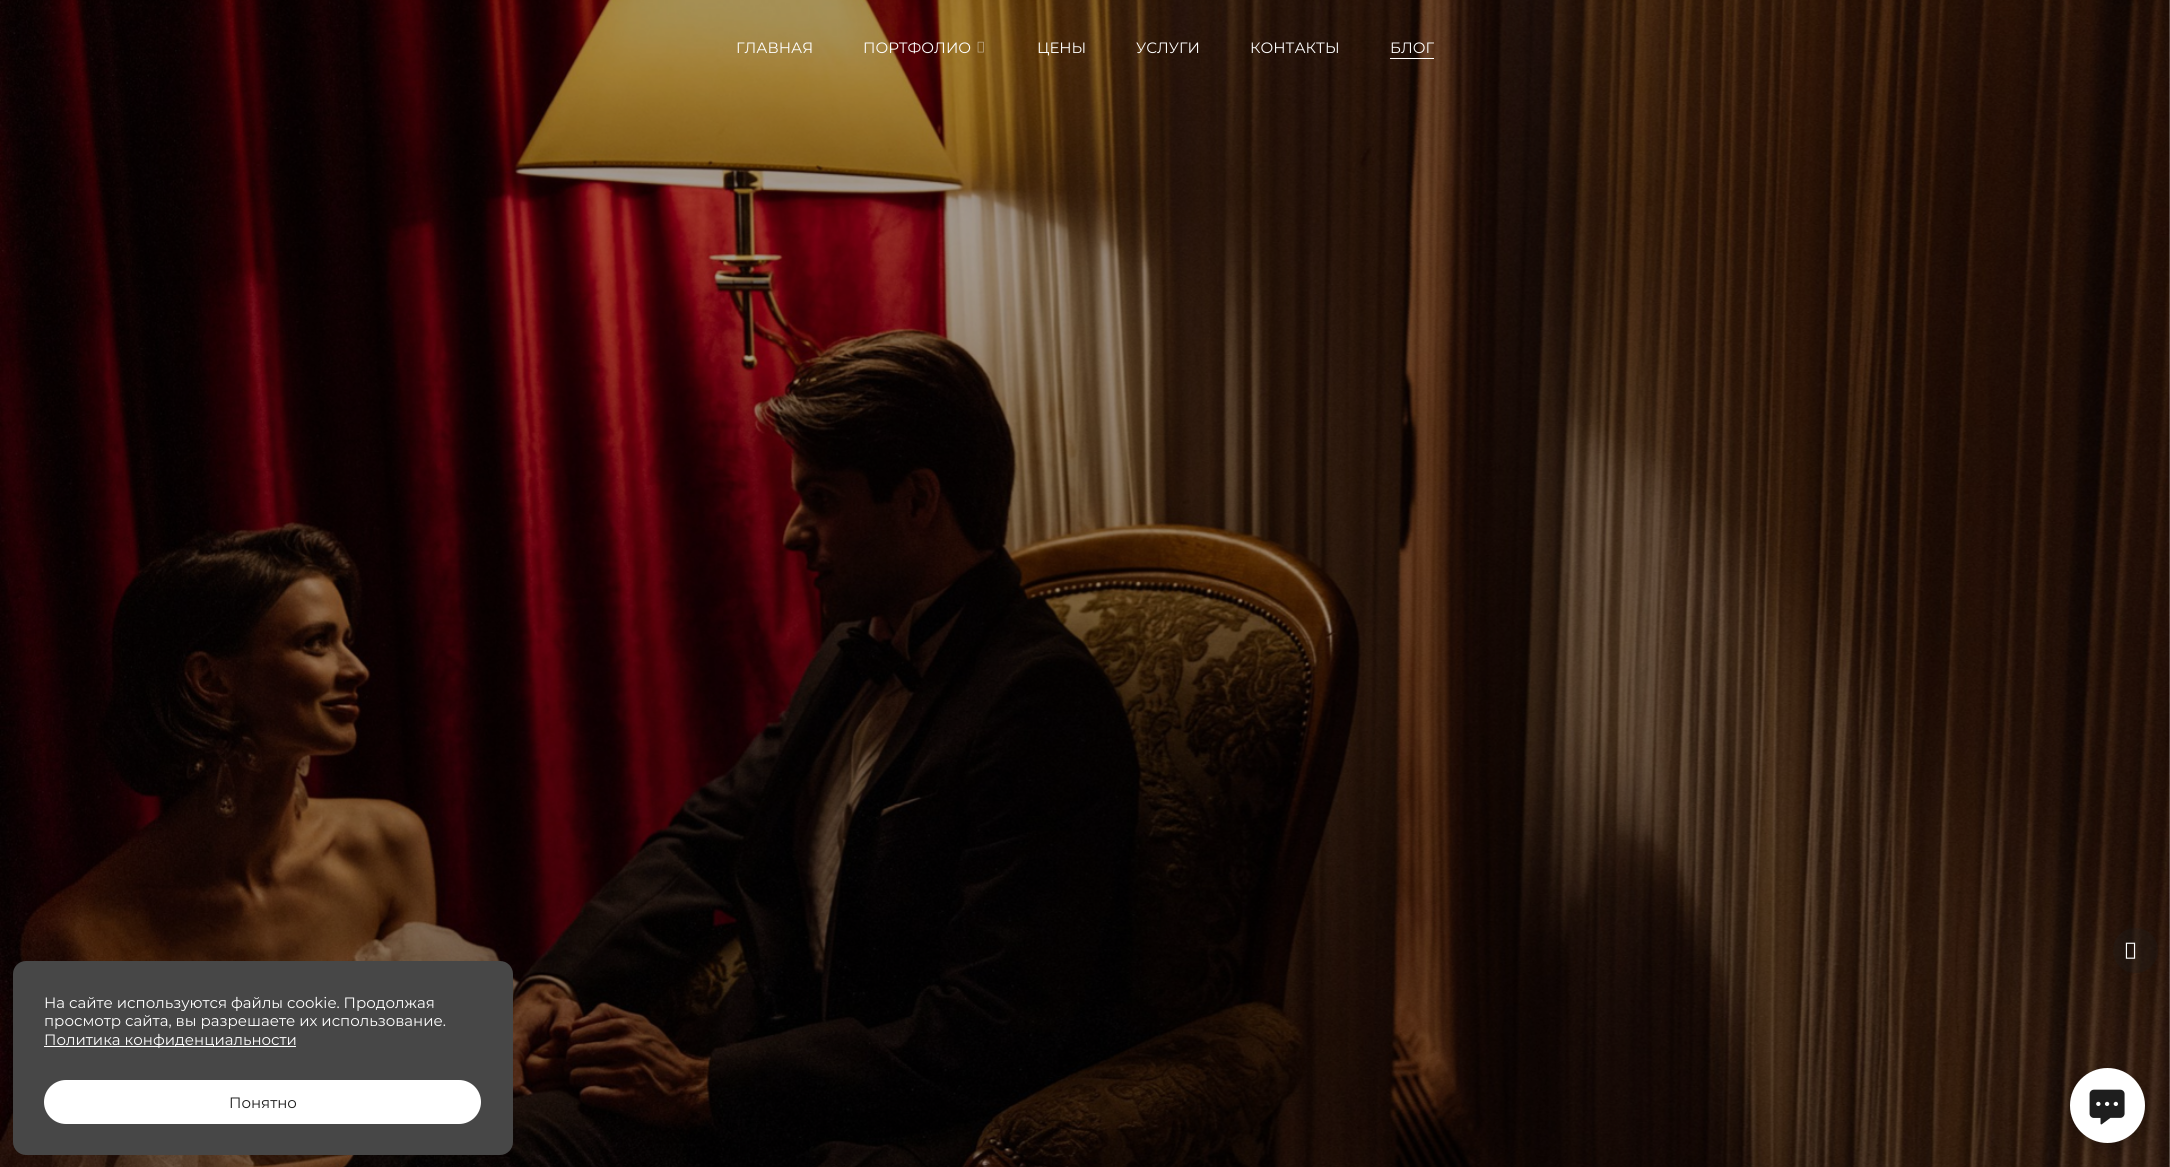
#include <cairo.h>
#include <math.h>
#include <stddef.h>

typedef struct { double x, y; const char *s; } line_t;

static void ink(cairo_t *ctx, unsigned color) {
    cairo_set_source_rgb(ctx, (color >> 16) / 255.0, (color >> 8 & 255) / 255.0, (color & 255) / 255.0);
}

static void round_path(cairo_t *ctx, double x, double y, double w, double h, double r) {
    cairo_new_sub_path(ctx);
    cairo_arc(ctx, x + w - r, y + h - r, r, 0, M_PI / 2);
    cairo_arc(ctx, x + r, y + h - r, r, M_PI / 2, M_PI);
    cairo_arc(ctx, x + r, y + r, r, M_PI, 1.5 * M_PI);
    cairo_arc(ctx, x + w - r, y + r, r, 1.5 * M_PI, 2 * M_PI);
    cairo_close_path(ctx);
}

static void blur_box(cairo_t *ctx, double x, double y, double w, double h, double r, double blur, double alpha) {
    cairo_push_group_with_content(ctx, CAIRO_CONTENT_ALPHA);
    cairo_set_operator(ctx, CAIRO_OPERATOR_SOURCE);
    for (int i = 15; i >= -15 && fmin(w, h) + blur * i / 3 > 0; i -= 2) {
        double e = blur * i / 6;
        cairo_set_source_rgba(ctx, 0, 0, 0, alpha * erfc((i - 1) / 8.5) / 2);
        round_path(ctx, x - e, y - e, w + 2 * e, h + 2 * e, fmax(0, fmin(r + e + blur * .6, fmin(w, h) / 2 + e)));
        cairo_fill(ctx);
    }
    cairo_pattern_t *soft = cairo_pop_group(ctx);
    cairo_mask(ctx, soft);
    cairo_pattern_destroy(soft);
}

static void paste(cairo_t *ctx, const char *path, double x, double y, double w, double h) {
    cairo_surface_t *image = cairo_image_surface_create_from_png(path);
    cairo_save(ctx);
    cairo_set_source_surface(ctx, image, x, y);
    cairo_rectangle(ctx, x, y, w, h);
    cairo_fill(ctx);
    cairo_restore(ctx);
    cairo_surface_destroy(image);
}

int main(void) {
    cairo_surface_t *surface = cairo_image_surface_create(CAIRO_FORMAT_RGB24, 2170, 1167);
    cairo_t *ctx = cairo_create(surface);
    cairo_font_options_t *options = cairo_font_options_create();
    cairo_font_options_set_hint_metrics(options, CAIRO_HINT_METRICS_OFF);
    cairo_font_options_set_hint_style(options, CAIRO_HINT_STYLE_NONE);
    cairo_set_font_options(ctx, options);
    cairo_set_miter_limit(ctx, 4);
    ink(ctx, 0xFFFFFF);
    cairo_paint(ctx);
    paste(ctx, "media/1.png", 0, 0, 2170, 1167);
    cairo_select_font_face(ctx, "Montserrat", CAIRO_FONT_SLANT_NORMAL, CAIRO_FONT_WEIGHT_NORMAL);
    cairo_set_font_size(ctx, 15);
    ink(ctx, 0xFFFFFF);
    cairo_move_to(ctx, 736, 53);
    cairo_show_text(ctx, "ГЛАВНАЯ");
    cairo_move_to(ctx, 863, 53);
    cairo_show_text(ctx, "ПОРТФОЛИО");
    paste(ctx, "media/2.png", 977, 41, 7, 12);
    {
        static const line_t items[] = {
            {1037, 53, "ЦЕНЫ"},
            {1136, 53, "УСЛУГИ"},
            {1250, 53, "КОНТАКТЫ"},
            {1390, 53, "БЛОГ"},
        };
        for (size_t i = 0; i < sizeof items / sizeof *items; i++) {
            cairo_move_to(ctx, items[i].x, items[i].y);
            cairo_show_text(ctx, items[i].s);
        }
    }
    cairo_rectangle(ctx, 1390, 58, 44, 1);
    cairo_fill(ctx);
    cairo_set_source_rgba(ctx, 0.118, 0.118, 0.118, 0.3);
    cairo_arc(ctx, 2135.5, 950.5, 22.5, 0, 2 * M_PI);
    cairo_fill(ctx);
    paste(ctx, "media/3.png", 2125, 942, 11, 17);
    ink(ctx, 0x474747);
    round_path(ctx, 13, 961, 500, 194, 13);
    cairo_fill(ctx);
    ink(ctx, 0xFFFFFF);
    cairo_move_to(ctx, 44, 1008);
    cairo_show_text(ctx, "На сайте используются файлы cookie. Продолжая");
    cairo_move_to(ctx, 44, 1026);
    cairo_show_text(ctx, "просмотр сайта, вы разрешаете их использование.");
    cairo_rectangle(ctx, 44, 1046, 252, 1);
    cairo_fill(ctx);
    cairo_move_to(ctx, 44, 1045);
    cairo_show_text(ctx, "Политика конфиденциальности");
    round_path(ctx, 44, 1080, 437, 44, 22);
    cairo_fill(ctx);
    ink(ctx, 0x1E1E1E);
    cairo_move_to(ctx, 229, 1108);
    cairo_show_text(ctx, "Понятно");
    ink(ctx, 0x000000);
    blur_box(ctx, 2069, 1070, 77, 78, 38.5, 5, 0.15);
    ink(ctx, 0xFFFFFF);
    cairo_arc(ctx, 2107.5, 1105.5, 37.5, 0, 2 * M_PI);
    cairo_fill(ctx);
    paste(ctx, "media/4.png", 2089, 1089, 36, 36);
    cairo_surface_write_to_png(surface, "image.png");
    cairo_font_options_destroy(options);
    cairo_destroy(ctx);
    cairo_surface_destroy(surface);
    return 0;
}
